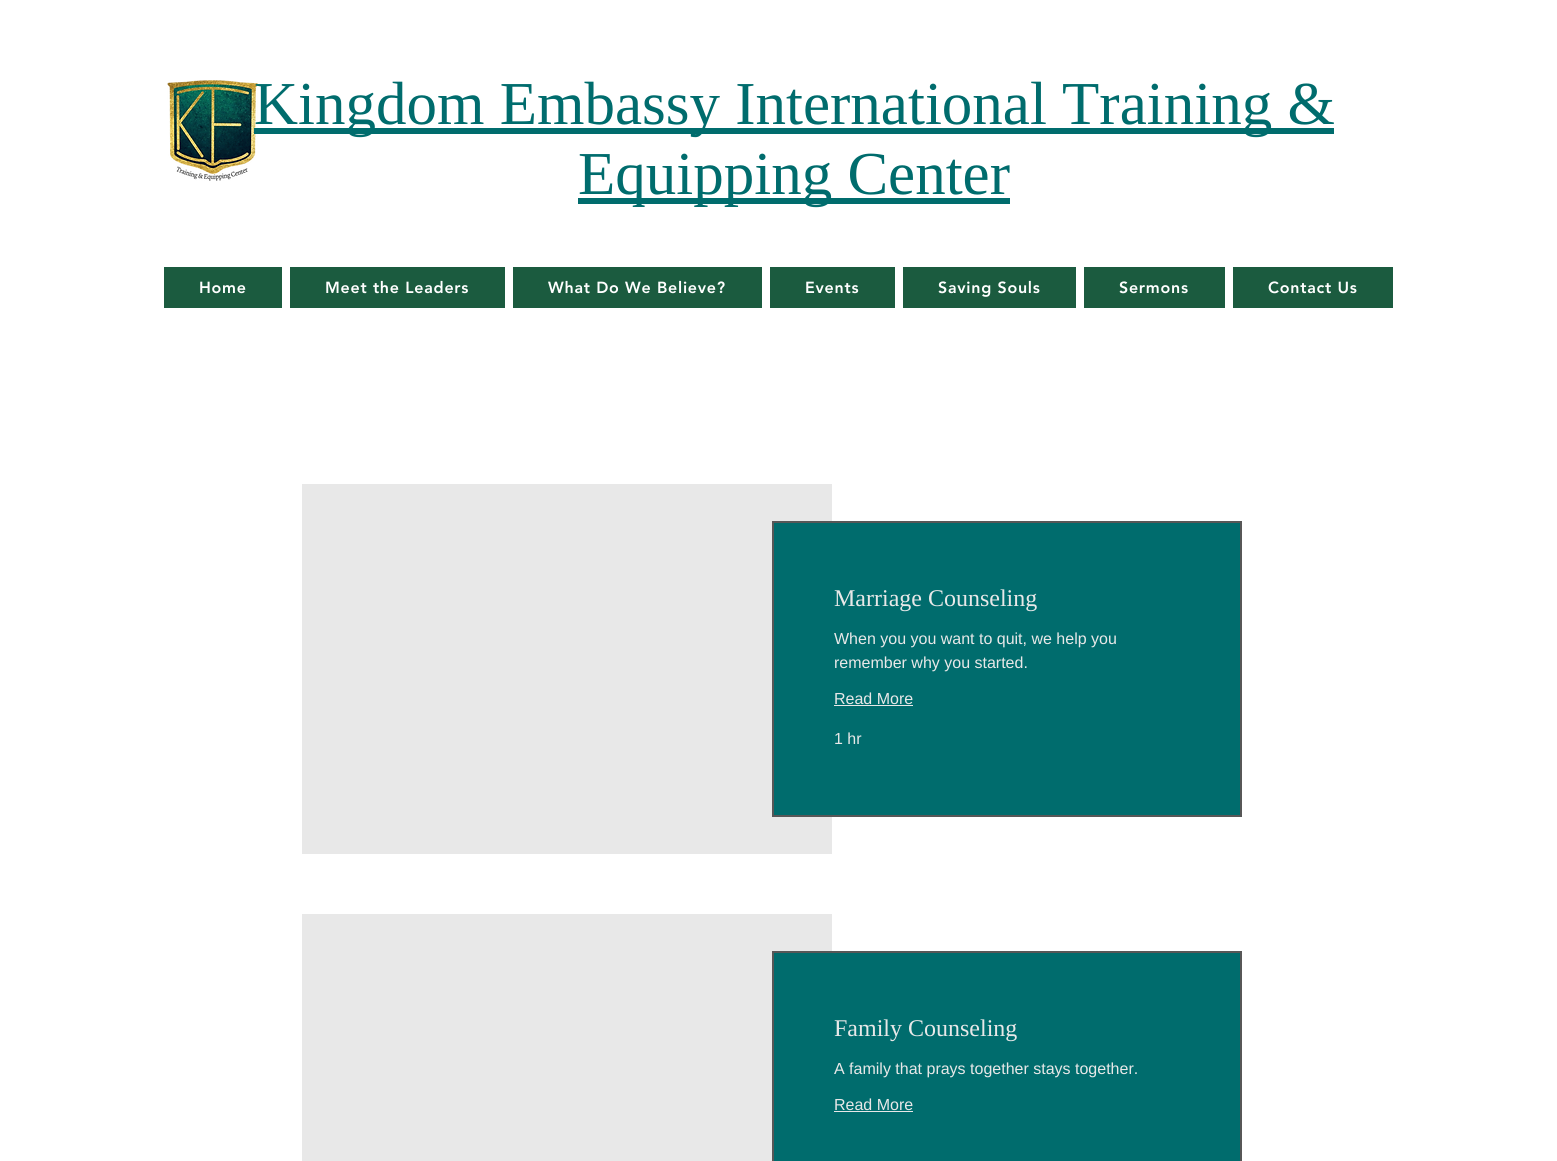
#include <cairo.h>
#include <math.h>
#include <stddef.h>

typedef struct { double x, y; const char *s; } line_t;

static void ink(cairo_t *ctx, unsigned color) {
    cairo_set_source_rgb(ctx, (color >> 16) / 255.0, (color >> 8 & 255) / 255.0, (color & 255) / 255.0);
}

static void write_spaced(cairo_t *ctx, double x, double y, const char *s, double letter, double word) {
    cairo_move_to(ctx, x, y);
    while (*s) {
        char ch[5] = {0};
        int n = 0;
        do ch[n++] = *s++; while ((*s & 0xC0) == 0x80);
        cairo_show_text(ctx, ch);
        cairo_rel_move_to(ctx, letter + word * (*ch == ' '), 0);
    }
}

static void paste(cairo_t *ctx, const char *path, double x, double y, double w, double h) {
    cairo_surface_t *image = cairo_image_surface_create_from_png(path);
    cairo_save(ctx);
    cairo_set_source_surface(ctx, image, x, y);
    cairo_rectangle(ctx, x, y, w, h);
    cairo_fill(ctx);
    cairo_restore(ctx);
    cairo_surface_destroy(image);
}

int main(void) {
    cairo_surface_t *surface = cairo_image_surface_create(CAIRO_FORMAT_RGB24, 1557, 1161);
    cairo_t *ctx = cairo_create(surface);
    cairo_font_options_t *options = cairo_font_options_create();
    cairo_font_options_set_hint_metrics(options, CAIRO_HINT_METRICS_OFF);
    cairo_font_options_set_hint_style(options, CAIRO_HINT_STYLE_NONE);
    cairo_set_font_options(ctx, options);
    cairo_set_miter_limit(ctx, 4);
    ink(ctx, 0xFFFFFF);
    cairo_paint(ctx);
    paste(ctx, "media/1.png", 167, 80, 91, 101);
    ink(ctx, 0x006C6D);
    cairo_rectangle(ctx, 254, 128, 1080, 6);
    cairo_fill(ctx);
    cairo_select_font_face(ctx, "Liberation Serif", CAIRO_FONT_SLANT_NORMAL, CAIRO_FONT_WEIGHT_NORMAL);
    cairo_set_font_size(ctx, 61);
    cairo_move_to(ctx, 254, 124);
    cairo_show_text(ctx, "Kingdom Embassy International Training &");
    cairo_rectangle(ctx, 578, 198, 432, 6);
    cairo_fill(ctx);
    cairo_move_to(ctx, 578, 194);
    cairo_show_text(ctx, "Equipping Center");
    ink(ctx, 0x1B5B3F);
    cairo_rectangle(ctx, 164, 267, 118, 41);
    cairo_fill(ctx);
    cairo_select_font_face(ctx, "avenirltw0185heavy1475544 Black", CAIRO_FONT_SLANT_NORMAL, CAIRO_FONT_WEIGHT_NORMAL);
    cairo_set_font_size(ctx, 16);
    ink(ctx, 0xFFFFFF);
    write_spaced(ctx, 199, 293, "Home", 0.75, 0);
    ink(ctx, 0x1B5B3F);
    cairo_rectangle(ctx, 290, 267, 215, 41);
    cairo_fill(ctx);
    ink(ctx, 0xFFFFFF);
    write_spaced(ctx, 325, 293, "Meet the Leaders", 0.75, 0);
    ink(ctx, 0x1B5B3F);
    cairo_rectangle(ctx, 513, 267, 249, 41);
    cairo_fill(ctx);
    ink(ctx, 0xFFFFFF);
    write_spaced(ctx, 548, 293, "What Do We Believe?", 0.75, 0);
    ink(ctx, 0x1B5B3F);
    cairo_rectangle(ctx, 770, 267, 125, 41);
    cairo_fill(ctx);
    ink(ctx, 0xFFFFFF);
    write_spaced(ctx, 805, 293, "Events", 0.75, 0);
    ink(ctx, 0x1B5B3F);
    cairo_rectangle(ctx, 903, 267, 173, 41);
    cairo_fill(ctx);
    ink(ctx, 0xFFFFFF);
    write_spaced(ctx, 938, 293, "Saving Souls", 0.75, 0);
    ink(ctx, 0x1B5B3F);
    cairo_rectangle(ctx, 1084, 267, 141, 41);
    cairo_fill(ctx);
    ink(ctx, 0xFFFFFF);
    write_spaced(ctx, 1119, 293, "Sermons", 0.75, 0);
    ink(ctx, 0x1B5B3F);
    cairo_rectangle(ctx, 1233, 267, 160, 41);
    cairo_fill(ctx);
    ink(ctx, 0xFFFFFF);
    write_spaced(ctx, 1268, 293, "Contact Us", 0.75, 0);
    ink(ctx, 0xE8E8E8);
    cairo_rectangle(ctx, 302, 484, 530, 370);
    cairo_fill(ctx);
    ink(ctx, 0x006C6D);
    cairo_rectangle(ctx, 773, 522, 468, 294);
    cairo_fill_preserve(ctx);
    ink(ctx, 0x575757);
    cairo_stroke(ctx);
    cairo_select_font_face(ctx, "Liberation Serif", CAIRO_FONT_SLANT_NORMAL, CAIRO_FONT_WEIGHT_NORMAL);
    cairo_set_font_size(ctx, 24);
    ink(ctx, 0xE8E8E8);
    cairo_move_to(ctx, 834, 606);
    cairo_show_text(ctx, "Marriage Counseling");
    cairo_select_font_face(ctx, "Liberation Sans", CAIRO_FONT_SLANT_NORMAL, CAIRO_FONT_WEIGHT_NORMAL);
    cairo_set_font_size(ctx, 16);
    {
        static const line_t items[] = {
            {834, 644, "When you you want to quit, we help you"},
            {834, 668, "remember why you started."},
            {834, 704, "Read More"},
        };
        for (size_t i = 0; i < sizeof items / sizeof *items; i++) {
            cairo_move_to(ctx, items[i].x, items[i].y);
            cairo_show_text(ctx, items[i].s);
        }
    }
    cairo_rectangle(ctx, 834, 705, 79, 1);
    cairo_fill(ctx);
    cairo_move_to(ctx, 834, 744);
    cairo_show_text(ctx, "1 hr");
    cairo_rectangle(ctx, 302, 914, 530, 247);
    cairo_fill(ctx);
    ink(ctx, 0x006C6D);
    cairo_rectangle(ctx, 773, 952, 468, 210);
    cairo_fill_preserve(ctx);
    ink(ctx, 0x575757);
    cairo_stroke(ctx);
    cairo_select_font_face(ctx, "Liberation Serif", CAIRO_FONT_SLANT_NORMAL, CAIRO_FONT_WEIGHT_NORMAL);
    cairo_set_font_size(ctx, 24);
    ink(ctx, 0xE8E8E8);
    cairo_move_to(ctx, 834, 1036);
    cairo_show_text(ctx, "Family Counseling");
    cairo_select_font_face(ctx, "Liberation Sans", CAIRO_FONT_SLANT_NORMAL, CAIRO_FONT_WEIGHT_NORMAL);
    cairo_set_font_size(ctx, 16);
    cairo_move_to(ctx, 834, 1074);
    cairo_show_text(ctx, "A family that prays together stays together.");
    cairo_move_to(ctx, 834, 1110);
    cairo_show_text(ctx, "Read More");
    cairo_rectangle(ctx, 834, 1111, 79, 1);
    cairo_fill(ctx);
    cairo_surface_write_to_png(surface, "image.png");
    cairo_font_options_destroy(options);
    cairo_destroy(ctx);
    cairo_surface_destroy(surface);
    return 0;
}
